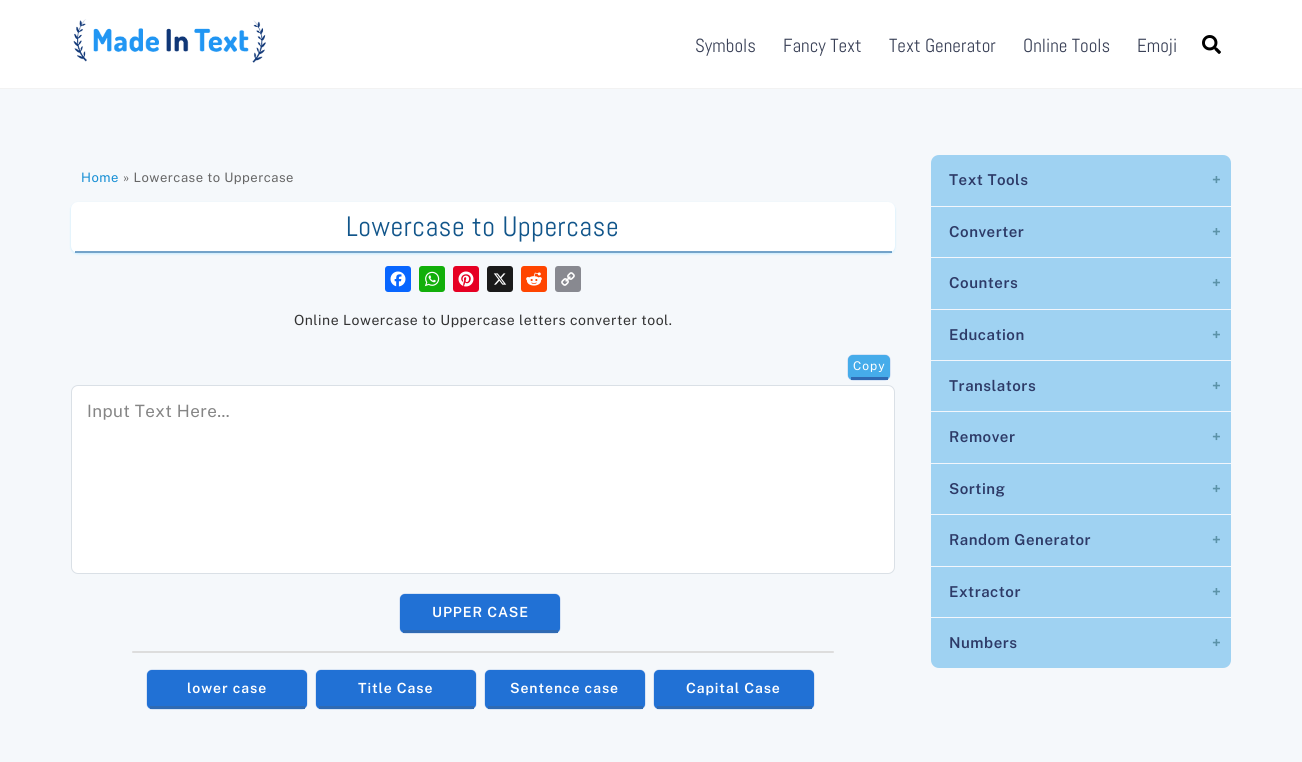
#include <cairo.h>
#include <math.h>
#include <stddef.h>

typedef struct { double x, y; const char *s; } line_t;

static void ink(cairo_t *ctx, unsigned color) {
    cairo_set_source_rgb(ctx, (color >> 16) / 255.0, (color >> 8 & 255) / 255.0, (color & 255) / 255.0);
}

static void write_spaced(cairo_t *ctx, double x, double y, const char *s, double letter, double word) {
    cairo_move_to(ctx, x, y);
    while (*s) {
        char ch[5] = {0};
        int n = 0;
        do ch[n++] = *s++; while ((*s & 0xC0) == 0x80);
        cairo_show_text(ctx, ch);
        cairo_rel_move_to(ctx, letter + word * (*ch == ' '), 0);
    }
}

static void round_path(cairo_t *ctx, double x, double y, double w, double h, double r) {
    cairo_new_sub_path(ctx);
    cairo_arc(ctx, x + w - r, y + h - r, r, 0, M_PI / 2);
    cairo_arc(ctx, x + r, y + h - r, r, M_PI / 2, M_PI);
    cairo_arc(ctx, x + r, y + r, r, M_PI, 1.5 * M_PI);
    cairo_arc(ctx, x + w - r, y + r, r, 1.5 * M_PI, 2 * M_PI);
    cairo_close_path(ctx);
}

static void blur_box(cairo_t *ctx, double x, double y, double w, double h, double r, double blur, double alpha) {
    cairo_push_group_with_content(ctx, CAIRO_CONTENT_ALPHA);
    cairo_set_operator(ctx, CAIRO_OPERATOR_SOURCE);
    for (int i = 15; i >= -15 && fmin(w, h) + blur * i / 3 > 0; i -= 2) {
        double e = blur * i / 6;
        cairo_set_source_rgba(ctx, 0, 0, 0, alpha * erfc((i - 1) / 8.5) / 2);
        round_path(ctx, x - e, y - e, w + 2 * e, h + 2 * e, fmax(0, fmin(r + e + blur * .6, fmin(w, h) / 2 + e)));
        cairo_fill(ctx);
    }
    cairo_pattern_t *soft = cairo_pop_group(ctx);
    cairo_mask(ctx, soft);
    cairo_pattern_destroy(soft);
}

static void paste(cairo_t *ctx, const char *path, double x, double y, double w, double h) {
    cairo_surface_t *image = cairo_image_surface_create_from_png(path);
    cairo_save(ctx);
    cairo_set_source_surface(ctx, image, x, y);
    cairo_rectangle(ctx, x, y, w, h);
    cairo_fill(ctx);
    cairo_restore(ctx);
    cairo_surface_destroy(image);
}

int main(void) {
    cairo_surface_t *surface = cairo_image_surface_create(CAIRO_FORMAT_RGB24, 1302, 762);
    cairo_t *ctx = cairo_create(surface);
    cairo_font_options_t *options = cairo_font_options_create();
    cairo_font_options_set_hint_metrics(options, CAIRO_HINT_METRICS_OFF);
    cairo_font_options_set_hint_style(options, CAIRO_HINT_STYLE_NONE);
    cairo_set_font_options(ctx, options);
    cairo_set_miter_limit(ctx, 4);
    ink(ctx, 0xFFFFFF);
    cairo_paint(ctx);
    ink(ctx, 0xF2F2F2);
    cairo_rectangle(ctx, 0, 88, 1302, 1);
    cairo_fill(ctx);
    paste(ctx, "media/1.png", 73, 19, 193, 44);
    cairo_select_font_face(ctx, "Abel", CAIRO_FONT_SLANT_NORMAL, CAIRO_FONT_WEIGHT_NORMAL);
    cairo_set_font_size(ctx, 19);
    ink(ctx, 0x3A4157);
    {
        static const line_t items[] = {
            {695, 52, "Symbols"},
            {783, 52, "Fancy Text"},
            {889, 52, "Text Generator"},
            {1023, 52, "Online Tools"},
            {1137, 52, "Emoji"},
        };
        for (size_t i = 0; i < sizeof items / sizeof *items; i++) {
            cairo_move_to(ctx, items[i].x, items[i].y);
            cairo_show_text(ctx, items[i].s);
        }
    }
    paste(ctx, "media/2.png", 1202, 35, 19, 19);
    ink(ctx, 0xF5F8FB);
    cairo_rectangle(ctx, 0, 89, 1302, 673);
    cairo_fill(ctx);
    cairo_select_font_face(ctx, "Public Sans", CAIRO_FONT_SLANT_NORMAL, CAIRO_FONT_WEIGHT_NORMAL);
    cairo_set_font_size(ctx, 13);
    ink(ctx, 0x158ED4);
    write_spaced(ctx, 81, 182, "Home", 0.5, 0);
    ink(ctx, 0x666666);
    write_spaced(ctx, 123, 182, "» Lowercase to Uppercase", 0.5, 0);
    ink(ctx, 0xC6ECFF);
    blur_box(ctx, 71, 203, 824, 51, 7, 1, 1);
    ink(ctx, 0xFFFFFF);
    round_path(ctx, 71, 202, 824, 51, 7);
    cairo_fill(ctx);
    cairo_set_source_rgba(ctx, 0.067, 0.38, 0.635, 0.58);
    cairo_rectangle(ctx, 75, 251, 817, 2);
    cairo_fill(ctx);
    cairo_select_font_face(ctx, "Abel", CAIRO_FONT_SLANT_NORMAL, CAIRO_FONT_WEIGHT_NORMAL);
    cairo_set_font_size(ctx, 28);
    ink(ctx, 0x11558A);
    write_spaced(ctx, 346, 236, "Lowercase to Uppercase", 0.5, 0);
    ink(ctx, 0x0866FF);
    round_path(ctx, 385, 266, 26, 26, 3);
    cairo_fill(ctx);
    paste(ctx, "media/3.png", 390, 271, 16, 16);
    ink(ctx, 0x12AF0A);
    round_path(ctx, 419, 266, 26, 26, 3);
    cairo_fill(ctx);
    paste(ctx, "media/4.png", 424, 271, 16, 16);
    ink(ctx, 0xE60023);
    round_path(ctx, 453, 266, 26, 26, 3);
    cairo_fill(ctx);
    paste(ctx, "media/5.png", 458, 271, 16, 16);
    ink(ctx, 0x1A1A1A);
    round_path(ctx, 487, 266, 26, 26, 3);
    cairo_fill(ctx);
    paste(ctx, "media/6.png", 493, 273, 14, 12);
    ink(ctx, 0xFF4500);
    round_path(ctx, 521, 266, 26, 26, 3);
    cairo_fill(ctx);
    paste(ctx, "media/7.png", 526, 272, 16, 14);
    ink(ctx, 0x888990);
    round_path(ctx, 555, 266, 26, 26, 3);
    cairo_fill(ctx);
    paste(ctx, "media/8.png", 561, 272, 14, 14);
    cairo_select_font_face(ctx, "Public Sans", CAIRO_FONT_SLANT_NORMAL, CAIRO_FONT_WEIGHT_NORMAL);
    cairo_set_font_size(ctx, 14);
    ink(ctx, 0x333333);
    write_spaced(ctx, 294, 325, "Online Lowercase to Uppercase letters converter tool.", 0.5, 0);
    ink(ctx, 0x85A8E1);
    blur_box(ctx, 848, 355, 42, 25, 5, 0.5, 1);
    ink(ctx, 0x46ACEA);
    round_path(ctx, 848, 355, 42, 25, 5);
    cairo_fill(ctx);
    ink(ctx, 0x2F6AB3);
    cairo_rectangle(ctx, 851, 377, 37, 3);
    cairo_fill(ctx);
    cairo_set_font_size(ctx, 12);
    ink(ctx, 0xFFFFFF);
    write_spaced(ctx, 853, 370, "Copy", 1, 0);
    round_path(ctx, 71.5, 385.5, 823, 188, 6.5);
    cairo_fill_preserve(ctx);
    ink(ctx, 0xDAE0E6);
    cairo_set_line_width(ctx, 1);
    cairo_stroke(ctx);
    cairo_set_font_size(ctx, 17);
    ink(ctx, 0x858585);
    write_spaced(ctx, 87, 417, "Input Text Here...", 0.4, 0);
    ink(ctx, 0x85A8E1);
    blur_box(ctx, 400, 594, 160, 39, 5, 0.5, 1);
    ink(ctx, 0x2171D5);
    round_path(ctx, 400, 594, 160, 39, 5);
    cairo_fill(ctx);
    ink(ctx, 0x2F6AB3);
    cairo_rectangle(ctx, 403, 630, 155, 3);
    cairo_fill(ctx);
    cairo_select_font_face(ctx, "Public Sans SemiBold", CAIRO_FONT_SLANT_NORMAL, CAIRO_FONT_WEIGHT_NORMAL);
    cairo_set_font_size(ctx, 14);
    ink(ctx, 0xFFFFFF);
    write_spaced(ctx, 432, 617, "UPPER CASE", 0.9, 0);
    ink(ctx, 0xDDDDDD);
    round_path(ctx, 132, 651, 702, 2, 1);
    cairo_fill(ctx);
    ink(ctx, 0x85A8E1);
    blur_box(ctx, 147, 670, 160, 39, 5, 0.5, 1);
    ink(ctx, 0x2171D5);
    round_path(ctx, 147, 670, 160, 39, 5);
    cairo_fill(ctx);
    ink(ctx, 0x2F6AB3);
    cairo_rectangle(ctx, 150, 706, 155, 3);
    cairo_fill(ctx);
    ink(ctx, 0xFFFFFF);
    write_spaced(ctx, 187, 693, "lower case", 0.9, 0);
    ink(ctx, 0x85A8E1);
    blur_box(ctx, 316, 670, 160, 39, 5, 0.5, 1);
    ink(ctx, 0x2171D5);
    round_path(ctx, 316, 670, 160, 39, 5);
    cairo_fill(ctx);
    ink(ctx, 0x2F6AB3);
    cairo_rectangle(ctx, 319, 706, 155, 3);
    cairo_fill(ctx);
    ink(ctx, 0xFFFFFF);
    write_spaced(ctx, 358, 693, "Title Case", 0.9, 0);
    ink(ctx, 0x85A8E1);
    blur_box(ctx, 485, 670, 160, 39, 5, 0.5, 1);
    ink(ctx, 0x2171D5);
    round_path(ctx, 485, 670, 160, 39, 5);
    cairo_fill(ctx);
    ink(ctx, 0x2F6AB3);
    cairo_rectangle(ctx, 488, 706, 155, 3);
    cairo_fill(ctx);
    ink(ctx, 0xFFFFFF);
    write_spaced(ctx, 510, 693, "Sentence case", 0.9, 0);
    ink(ctx, 0x85A8E1);
    blur_box(ctx, 654, 670, 160, 39, 5, 0.5, 1);
    ink(ctx, 0x2171D5);
    round_path(ctx, 654, 670, 160, 39, 5);
    cairo_fill(ctx);
    ink(ctx, 0x2F6AB3);
    cairo_rectangle(ctx, 657, 706, 155, 3);
    cairo_fill(ctx);
    ink(ctx, 0xFFFFFF);
    write_spaced(ctx, 686, 693, "Capital Case", 0.9, 0);
    ink(ctx, 0x9FD2F2);
    cairo_new_path(ctx);
    cairo_move_to(ctx, 939, 155);
    cairo_line_to(ctx, 1223, 155);
    cairo_curve_to(ctx, 1227.5, 155, 1231, 158.5, 1231, 163);
    cairo_line_to(ctx, 1231, 207);
    cairo_line_to(ctx, 931, 207);
    cairo_line_to(ctx, 931, 163);
    cairo_curve_to(ctx, 931, 158.5, 934.5, 155, 939, 155);
    cairo_close_path(ctx);
    cairo_fill(ctx);
    ink(ctx, 0xF2F6FC);
    cairo_rectangle(ctx, 931, 206, 300, 1);
    cairo_fill(ctx);
    cairo_set_font_size(ctx, 15);
    ink(ctx, 0x2D3A67);
    write_spaced(ctx, 949, 185, "Text Tools", 0.5, 0);
    cairo_select_font_face(ctx, "Public Sans", CAIRO_FONT_SLANT_NORMAL, CAIRO_FONT_WEIGHT_BOLD);
    ink(ctx, 0x5B92A8);
    write_spaced(ctx, 1212, 185, "+", 0.5, 0);
    ink(ctx, 0x9FD2F2);
    cairo_rectangle(ctx, 931, 207, 300, 50);
    cairo_fill(ctx);
    ink(ctx, 0xF2F6FC);
    cairo_rectangle(ctx, 931, 257, 300, 1);
    cairo_fill(ctx);
    cairo_select_font_face(ctx, "Public Sans SemiBold", CAIRO_FONT_SLANT_NORMAL, CAIRO_FONT_WEIGHT_NORMAL);
    ink(ctx, 0x2D3A67);
    write_spaced(ctx, 949, 237, "Converter", 0.5, 0);
    cairo_select_font_face(ctx, "Public Sans", CAIRO_FONT_SLANT_NORMAL, CAIRO_FONT_WEIGHT_BOLD);
    ink(ctx, 0x5B92A8);
    write_spaced(ctx, 1212, 237, "+", 0.5, 0);
    ink(ctx, 0x9FD2F2);
    cairo_rectangle(ctx, 931, 258, 300, 51);
    cairo_fill(ctx);
    ink(ctx, 0xF2F6FC);
    cairo_rectangle(ctx, 931, 309, 300, 1);
    cairo_fill(ctx);
    cairo_select_font_face(ctx, "Public Sans SemiBold", CAIRO_FONT_SLANT_NORMAL, CAIRO_FONT_WEIGHT_NORMAL);
    ink(ctx, 0x2D3A67);
    write_spaced(ctx, 949, 288, "Counters", 0.5, 0);
    cairo_select_font_face(ctx, "Public Sans", CAIRO_FONT_SLANT_NORMAL, CAIRO_FONT_WEIGHT_BOLD);
    ink(ctx, 0x5B92A8);
    write_spaced(ctx, 1212, 288, "+", 0.5, 0);
    ink(ctx, 0x9FD2F2);
    cairo_rectangle(ctx, 931, 310, 300, 50);
    cairo_fill(ctx);
    ink(ctx, 0xF2F6FC);
    cairo_rectangle(ctx, 931, 360, 300, 1);
    cairo_fill(ctx);
    cairo_select_font_face(ctx, "Public Sans SemiBold", CAIRO_FONT_SLANT_NORMAL, CAIRO_FONT_WEIGHT_NORMAL);
    ink(ctx, 0x2D3A67);
    write_spaced(ctx, 949, 340, "Education", 0.5, 0);
    cairo_select_font_face(ctx, "Public Sans", CAIRO_FONT_SLANT_NORMAL, CAIRO_FONT_WEIGHT_BOLD);
    ink(ctx, 0x5B92A8);
    write_spaced(ctx, 1212, 340, "+", 0.5, 0);
    ink(ctx, 0x9FD2F2);
    cairo_rectangle(ctx, 931, 361, 300, 50);
    cairo_fill(ctx);
    ink(ctx, 0xF2F6FC);
    cairo_rectangle(ctx, 931, 411, 300, 1);
    cairo_fill(ctx);
    cairo_select_font_face(ctx, "Public Sans SemiBold", CAIRO_FONT_SLANT_NORMAL, CAIRO_FONT_WEIGHT_NORMAL);
    ink(ctx, 0x2D3A67);
    write_spaced(ctx, 949, 391, "Translators", 0.5, 0);
    cairo_select_font_face(ctx, "Public Sans", CAIRO_FONT_SLANT_NORMAL, CAIRO_FONT_WEIGHT_BOLD);
    ink(ctx, 0x5B92A8);
    write_spaced(ctx, 1212, 391, "+", 0.5, 0);
    ink(ctx, 0x9FD2F2);
    cairo_rectangle(ctx, 931, 412, 300, 51);
    cairo_fill(ctx);
    ink(ctx, 0xF2F6FC);
    cairo_rectangle(ctx, 931, 463, 300, 1);
    cairo_fill(ctx);
    cairo_select_font_face(ctx, "Public Sans SemiBold", CAIRO_FONT_SLANT_NORMAL, CAIRO_FONT_WEIGHT_NORMAL);
    ink(ctx, 0x2D3A67);
    write_spaced(ctx, 949, 442, "Remover", 0.5, 0);
    cairo_select_font_face(ctx, "Public Sans", CAIRO_FONT_SLANT_NORMAL, CAIRO_FONT_WEIGHT_BOLD);
    ink(ctx, 0x5B92A8);
    write_spaced(ctx, 1212, 442, "+", 0.5, 0);
    ink(ctx, 0x9FD2F2);
    cairo_rectangle(ctx, 931, 464, 300, 50);
    cairo_fill(ctx);
    ink(ctx, 0xF2F6FC);
    cairo_rectangle(ctx, 931, 514, 300, 1);
    cairo_fill(ctx);
    cairo_select_font_face(ctx, "Public Sans SemiBold", CAIRO_FONT_SLANT_NORMAL, CAIRO_FONT_WEIGHT_NORMAL);
    ink(ctx, 0x2D3A67);
    write_spaced(ctx, 949, 494, "Sorting", 0.5, 0);
    cairo_select_font_face(ctx, "Public Sans", CAIRO_FONT_SLANT_NORMAL, CAIRO_FONT_WEIGHT_BOLD);
    ink(ctx, 0x5B92A8);
    write_spaced(ctx, 1212, 494, "+", 0.5, 0);
    ink(ctx, 0x9FD2F2);
    cairo_rectangle(ctx, 931, 515, 300, 51);
    cairo_fill(ctx);
    ink(ctx, 0xF2F6FC);
    cairo_rectangle(ctx, 931, 566, 300, 1);
    cairo_fill(ctx);
    cairo_select_font_face(ctx, "Public Sans SemiBold", CAIRO_FONT_SLANT_NORMAL, CAIRO_FONT_WEIGHT_NORMAL);
    ink(ctx, 0x2D3A67);
    write_spaced(ctx, 949, 545, "Random Generator", 0.5, 0);
    cairo_select_font_face(ctx, "Public Sans", CAIRO_FONT_SLANT_NORMAL, CAIRO_FONT_WEIGHT_BOLD);
    ink(ctx, 0x5B92A8);
    write_spaced(ctx, 1212, 545, "+", 0.5, 0);
    ink(ctx, 0x9FD2F2);
    cairo_rectangle(ctx, 931, 567, 300, 50);
    cairo_fill(ctx);
    ink(ctx, 0xF2F6FC);
    cairo_rectangle(ctx, 931, 617, 300, 1);
    cairo_fill(ctx);
    cairo_select_font_face(ctx, "Public Sans SemiBold", CAIRO_FONT_SLANT_NORMAL, CAIRO_FONT_WEIGHT_NORMAL);
    ink(ctx, 0x2D3A67);
    write_spaced(ctx, 949, 597, "Extractor", 0.5, 0);
    cairo_select_font_face(ctx, "Public Sans", CAIRO_FONT_SLANT_NORMAL, CAIRO_FONT_WEIGHT_BOLD);
    ink(ctx, 0x5B92A8);
    write_spaced(ctx, 1212, 597, "+", 0.5, 0);
    ink(ctx, 0x9FD2F2);
    cairo_new_path(ctx);
    cairo_move_to(ctx, 931, 618);
    cairo_line_to(ctx, 1231, 618);
    cairo_line_to(ctx, 1231, 660);
    cairo_curve_to(ctx, 1231, 664.5, 1227.5, 668, 1223, 668);
    cairo_line_to(ctx, 939, 668);
    cairo_curve_to(ctx, 934.5, 668, 931, 664.5, 931, 660);
    cairo_close_path(ctx);
    cairo_fill(ctx);
    cairo_select_font_face(ctx, "Public Sans SemiBold", CAIRO_FONT_SLANT_NORMAL, CAIRO_FONT_WEIGHT_NORMAL);
    ink(ctx, 0x2D3A67);
    write_spaced(ctx, 949, 648, "Numbers", 0.5, 0);
    cairo_select_font_face(ctx, "Public Sans", CAIRO_FONT_SLANT_NORMAL, CAIRO_FONT_WEIGHT_BOLD);
    ink(ctx, 0x5B92A8);
    write_spaced(ctx, 1212, 648, "+", 0.5, 0);
    cairo_surface_write_to_png(surface, "image.png");
    cairo_font_options_destroy(options);
    cairo_destroy(ctx);
    cairo_surface_destroy(surface);
    return 0;
}
